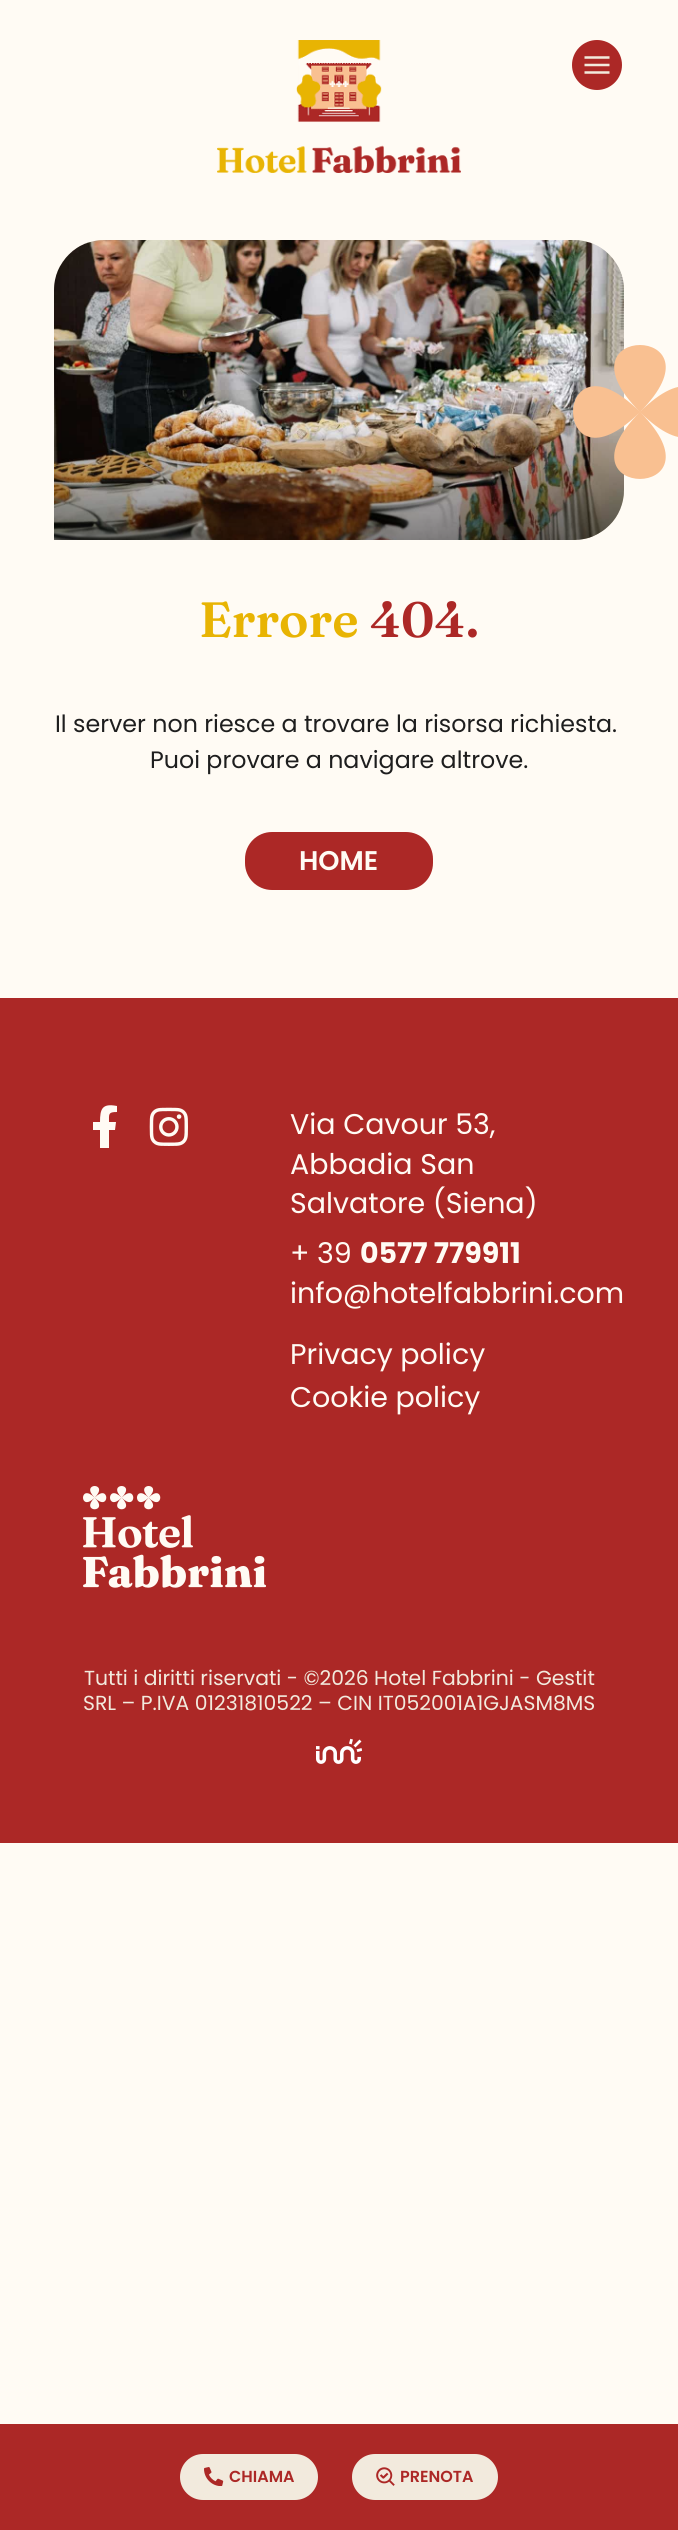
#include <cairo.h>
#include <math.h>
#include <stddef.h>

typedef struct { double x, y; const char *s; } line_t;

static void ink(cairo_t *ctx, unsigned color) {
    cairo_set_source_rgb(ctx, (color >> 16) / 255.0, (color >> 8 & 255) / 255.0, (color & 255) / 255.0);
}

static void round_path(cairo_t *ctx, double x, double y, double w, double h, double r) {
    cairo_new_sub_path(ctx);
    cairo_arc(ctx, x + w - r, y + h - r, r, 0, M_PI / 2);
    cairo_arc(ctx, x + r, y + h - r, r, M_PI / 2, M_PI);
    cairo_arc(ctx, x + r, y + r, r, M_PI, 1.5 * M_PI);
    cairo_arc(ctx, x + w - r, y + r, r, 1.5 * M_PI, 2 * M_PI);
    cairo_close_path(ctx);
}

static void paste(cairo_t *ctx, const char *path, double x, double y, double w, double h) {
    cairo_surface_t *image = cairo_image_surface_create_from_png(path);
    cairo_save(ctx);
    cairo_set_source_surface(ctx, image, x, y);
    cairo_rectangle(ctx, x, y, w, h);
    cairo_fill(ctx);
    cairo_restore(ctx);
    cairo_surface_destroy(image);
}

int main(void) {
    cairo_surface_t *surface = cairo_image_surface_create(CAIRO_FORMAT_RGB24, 678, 2530);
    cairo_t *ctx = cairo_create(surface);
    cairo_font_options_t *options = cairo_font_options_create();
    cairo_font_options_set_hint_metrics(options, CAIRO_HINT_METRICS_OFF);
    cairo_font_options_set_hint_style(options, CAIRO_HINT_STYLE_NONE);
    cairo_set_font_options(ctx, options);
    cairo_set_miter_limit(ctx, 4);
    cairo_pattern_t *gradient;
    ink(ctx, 0xFFFBF4);
    cairo_paint(ctx);
    ink(ctx, 0xF2EADD);
    cairo_new_path(ctx);
    cairo_move_to(ctx, 104, 240);
    cairo_line_to(ctx, 574, 240);
    cairo_curve_to(ctx, 601.5, 240, 624, 262.5, 624, 290);
    cairo_line_to(ctx, 624, 490);
    cairo_curve_to(ctx, 624, 517.5, 601.5, 540, 574, 540);
    cairo_line_to(ctx, 54, 540);
    cairo_line_to(ctx, 54, 290);
    cairo_curve_to(ctx, 54, 262.5, 76.5, 240, 104, 240);
    cairo_close_path(ctx);
    cairo_fill(ctx);
    paste(ctx, "media/1.png", 54, 240, 570, 300);
    gradient = cairo_pattern_create_linear(339, 240, 339, 540);
    cairo_pattern_add_color_stop_rgba(gradient, 0.6, 0, 0, 0, 0);
    cairo_pattern_add_color_stop_rgba(gradient, 1, 0, 0, 0, 0.44);
    cairo_set_source(ctx, gradient);
    cairo_pattern_destroy(gradient);
    cairo_new_path(ctx);
    cairo_move_to(ctx, 104, 240);
    cairo_line_to(ctx, 574, 240);
    cairo_curve_to(ctx, 601.5, 240, 624, 262.5, 624, 290);
    cairo_line_to(ctx, 624, 490);
    cairo_curve_to(ctx, 624, 517.5, 601.5, 540, 574, 540);
    cairo_line_to(ctx, 54, 540);
    cairo_line_to(ctx, 54, 290);
    cairo_curve_to(ctx, 54, 262.5, 76.5, 240, 104, 240);
    cairo_close_path(ctx);
    cairo_fill(ctx);
    paste(ctx, "media/2.png", 573, 345, 105, 134);
    cairo_select_font_face(ctx, "Fraunces SemiBold", CAIRO_FONT_SLANT_NORMAL, CAIRO_FONT_WEIGHT_NORMAL);
    cairo_set_font_size(ctx, 49.5);
    ink(ctx, 0xE8B403);
    cairo_move_to(ctx, 199, 637);
    cairo_show_text(ctx, "Errore");
    ink(ctx, 0xAC2826);
    cairo_move_to(ctx, 370, 637);
    cairo_show_text(ctx, "404.");
    cairo_select_font_face(ctx, "Poppins", CAIRO_FONT_SLANT_NORMAL, CAIRO_FONT_WEIGHT_NORMAL);
    cairo_set_font_size(ctx, 23.75);
    ink(ctx, 0x1E1E1E);
    cairo_move_to(ctx, 55, 732);
    cairo_show_text(ctx, "Il server non riesce a trovare la risorsa richiesta.");
    cairo_move_to(ctx, 150, 768);
    cairo_show_text(ctx, "Puoi provare a navigare altrove.");
    ink(ctx, 0xAC2826);
    round_path(ctx, 245, 832, 188, 58, 27);
    cairo_fill(ctx);
    cairo_select_font_face(ctx, "Poppins SemiBold", CAIRO_FONT_SLANT_NORMAL, CAIRO_FONT_WEIGHT_NORMAL);
    cairo_set_font_size(ctx, 27);
    ink(ctx, 0xFFFBF4);
    cairo_move_to(ctx, 299, 870);
    cairo_show_text(ctx, "HOME");
    ink(ctx, 0xAC2826);
    cairo_rectangle(ctx, 0, 998, 678, 845);
    cairo_fill(ctx);
    cairo_save(ctx);
    cairo_rectangle(ctx, 83, 1105, 43, 43);
    cairo_clip(ctx);
    ink(ctx, 0xFFFBF4);
    cairo_new_path(ctx);
    cairo_move_to(ctx, 115, 1130);
    cairo_line_to(ctx, 116, 1122);
    cairo_line_to(ctx, 109, 1122);
    cairo_curve_to(ctx, 109, 1114, 108, 1112, 117, 1112);
    cairo_line_to(ctx, 117, 1106);
    cairo_curve_to(ctx, 102, 1103, 100, 1109, 100, 1122);
    cairo_line_to(ctx, 93, 1122);
    cairo_line_to(ctx, 93, 1130);
    cairo_line_to(ctx, 100, 1130);
    cairo_line_to(ctx, 100, 1149);
    cairo_line_to(ctx, 109, 1149);
    cairo_line_to(ctx, 109, 1130);
    cairo_close_path(ctx);
    cairo_fill(ctx);
    cairo_restore(ctx);
    paste(ctx, "media/3.png", 149, 1107, 39, 39);
    cairo_select_font_face(ctx, "Poppins", CAIRO_FONT_SLANT_NORMAL, CAIRO_FONT_WEIGHT_NORMAL);
    cairo_set_font_size(ctx, 28.5);
    ink(ctx, 0xFFFBF4);
    {
        static const line_t items[] = {
            {290, 1134, "Via Cavour 53,"},
            {290, 1174, "Abbadia San"},
            {290, 1213, "Salvatore (Siena)"},
            {290, 1263, "+ 39"},
        };
        for (size_t i = 0; i < sizeof items / sizeof *items; i++) {
            cairo_move_to(ctx, items[i].x, items[i].y);
            cairo_show_text(ctx, items[i].s);
        }
    }
    cairo_select_font_face(ctx, "Poppins", CAIRO_FONT_SLANT_NORMAL, CAIRO_FONT_WEIGHT_BOLD);
    cairo_move_to(ctx, 360, 1263);
    cairo_show_text(ctx, "0577 779911");
    cairo_select_font_face(ctx, "Poppins", CAIRO_FONT_SLANT_NORMAL, CAIRO_FONT_WEIGHT_NORMAL);
    {
        static const line_t items[] = {
            {290, 1303, "info@hotelfabbrini.com"},
            {290, 1364, "Privacy policy"},
            {290, 1407, "Cookie policy"},
        };
        for (size_t i = 0; i < sizeof items / sizeof *items; i++) {
            cairo_move_to(ctx, items[i].x, items[i].y);
            cairo_show_text(ctx, items[i].s);
        }
    }
    paste(ctx, "media/4.png", 83, 1486, 183, 102);
    cairo_set_font_size(ctx, 20.35);
    ink(ctx, 0xF2EADD);
    cairo_move_to(ctx, 84, 1685);
    cairo_show_text(ctx, "Tutti i diritti riservati - ©2026 Hotel Fabbrini - Gestit");
    cairo_move_to(ctx, 83, 1710);
    cairo_show_text(ctx, "SRL – P.IVA 01231810522 – CIN IT052001A1GJASM8MS");
    paste(ctx, "media/5.png", 316, 1738, 46, 26);
    paste(ctx, "media/6.png", 217, 40, 244, 133);
    ink(ctx, 0xAC2826);
    cairo_arc(ctx, 597, 65, 25, 0, 2 * M_PI);
    cairo_fill(ctx);
    paste(ctx, "media/7.png", 584, 56, 26, 18);
    cairo_rectangle(ctx, 0, 2424, 678, 106);
    cairo_fill(ctx);
    ink(ctx, 0xF2EADD);
    round_path(ctx, 180, 2454, 138, 46, 23);
    cairo_fill(ctx);
    paste(ctx, "media/8.png", 204, 2467, 20, 19);
    cairo_select_font_face(ctx, "Poppins SemiBold", CAIRO_FONT_SLANT_NORMAL, CAIRO_FONT_WEIGHT_NORMAL);
    cairo_set_font_size(ctx, 16);
    ink(ctx, 0xAC2826);
    cairo_move_to(ctx, 229, 2482);
    cairo_show_text(ctx, "CHIAMA");
    ink(ctx, 0xF2EADD);
    round_path(ctx, 352, 2454, 146, 46, 23);
    cairo_fill(ctx);
    paste(ctx, "media/9.png", 376, 2467, 19, 19);
    ink(ctx, 0xAC2826);
    cairo_move_to(ctx, 400, 2482);
    cairo_show_text(ctx, "PRENOTA");
    cairo_surface_write_to_png(surface, "image.png");
    cairo_font_options_destroy(options);
    cairo_destroy(ctx);
    cairo_surface_destroy(surface);
    return 0;
}
